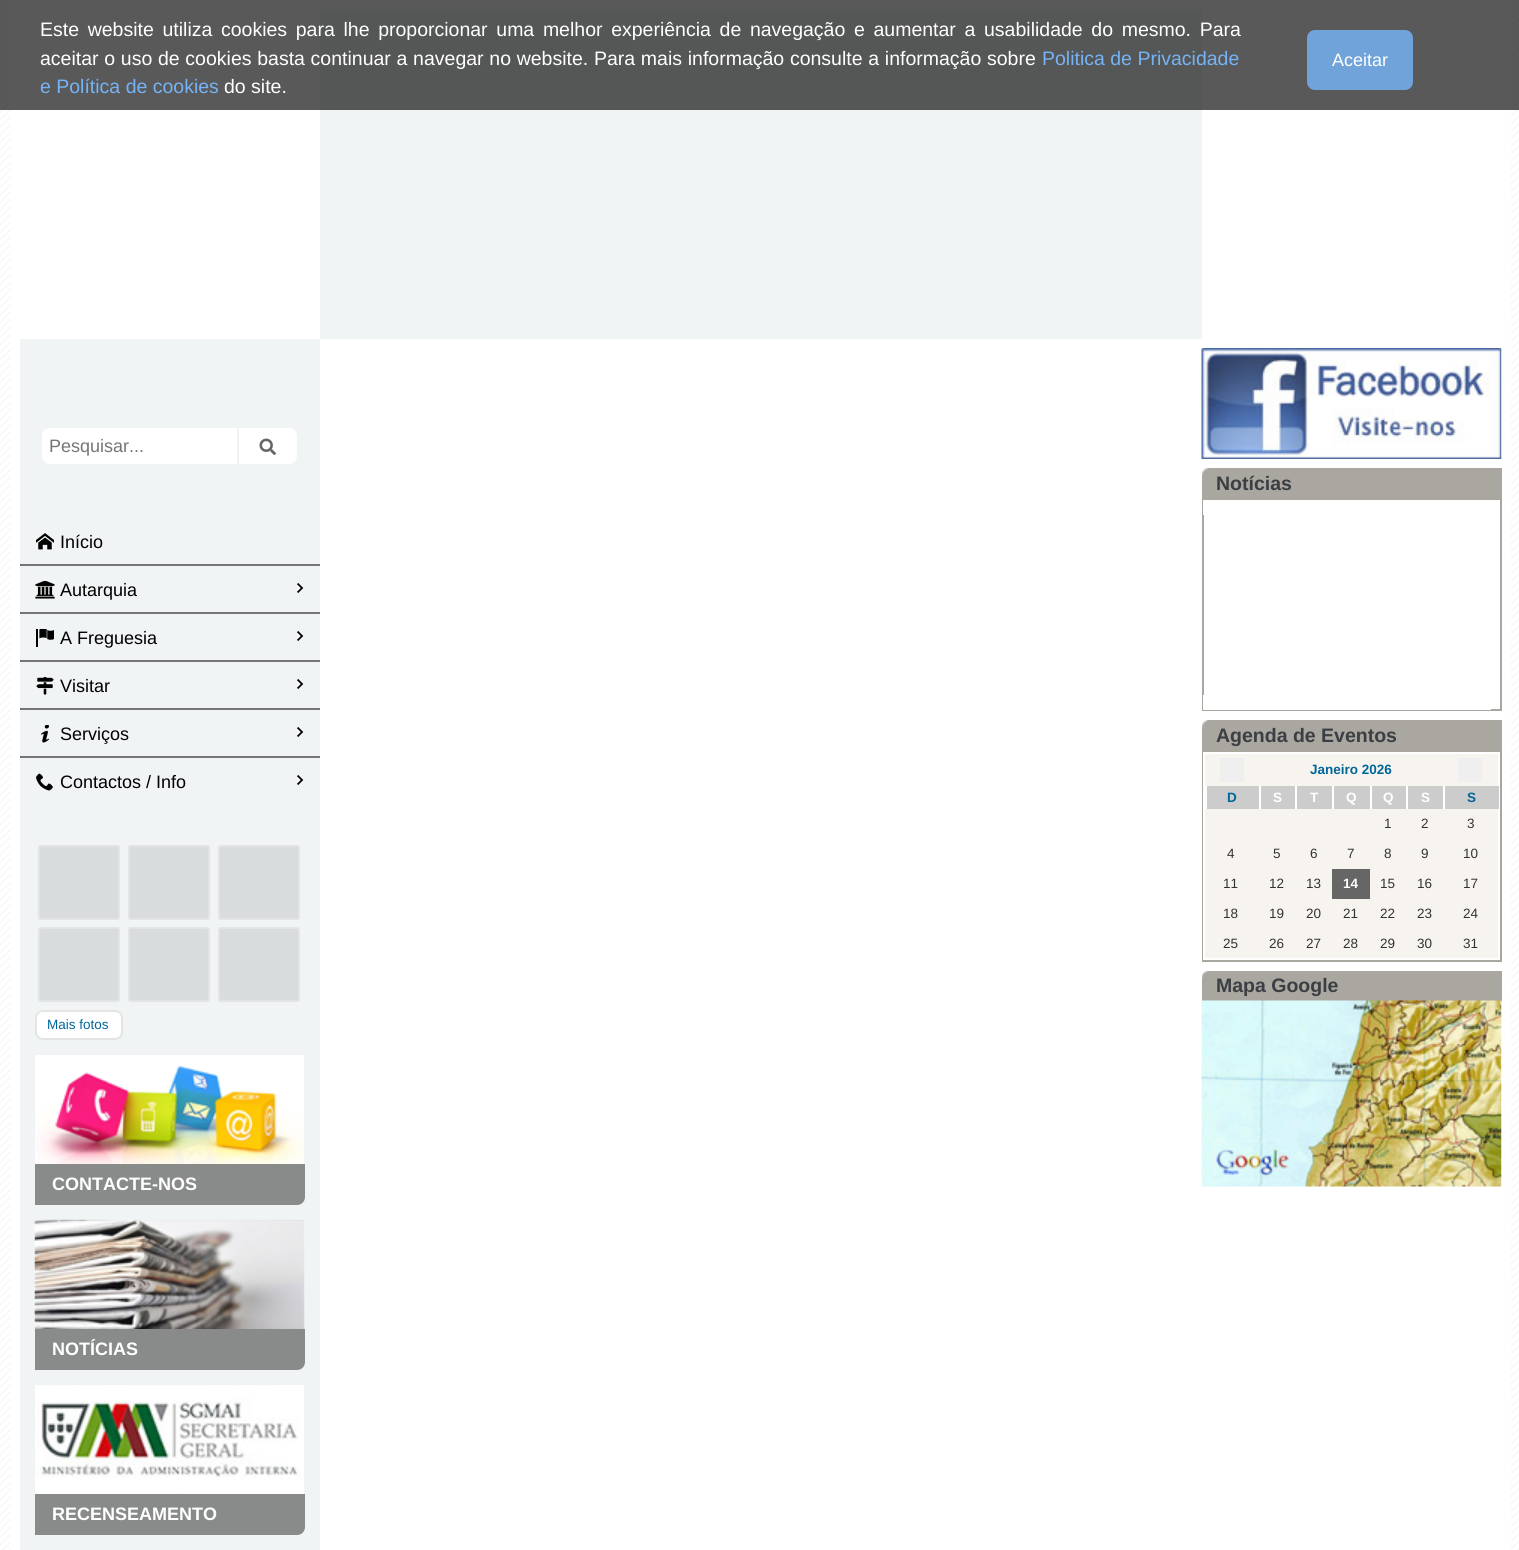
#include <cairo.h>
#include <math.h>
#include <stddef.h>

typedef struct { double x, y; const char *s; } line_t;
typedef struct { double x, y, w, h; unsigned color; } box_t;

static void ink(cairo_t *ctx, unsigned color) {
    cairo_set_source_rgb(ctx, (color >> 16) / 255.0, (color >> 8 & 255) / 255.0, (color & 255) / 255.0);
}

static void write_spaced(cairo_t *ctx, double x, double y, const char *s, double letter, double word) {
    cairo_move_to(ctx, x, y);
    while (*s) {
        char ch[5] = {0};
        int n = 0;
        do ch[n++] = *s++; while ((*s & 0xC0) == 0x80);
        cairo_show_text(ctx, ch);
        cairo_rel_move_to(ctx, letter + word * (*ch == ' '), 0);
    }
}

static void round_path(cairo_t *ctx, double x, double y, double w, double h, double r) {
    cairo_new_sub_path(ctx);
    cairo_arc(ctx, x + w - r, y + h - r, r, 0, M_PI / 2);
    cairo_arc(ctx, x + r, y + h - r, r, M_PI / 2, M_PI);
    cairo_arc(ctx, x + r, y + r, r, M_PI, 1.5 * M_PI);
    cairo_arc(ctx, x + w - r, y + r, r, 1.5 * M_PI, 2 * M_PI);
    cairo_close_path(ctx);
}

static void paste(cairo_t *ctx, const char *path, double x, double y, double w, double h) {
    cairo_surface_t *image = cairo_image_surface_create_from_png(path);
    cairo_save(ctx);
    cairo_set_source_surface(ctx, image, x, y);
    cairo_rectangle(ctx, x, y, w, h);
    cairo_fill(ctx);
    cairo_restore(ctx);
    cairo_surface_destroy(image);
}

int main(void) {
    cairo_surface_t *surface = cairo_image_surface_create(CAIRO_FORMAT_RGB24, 1519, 1550);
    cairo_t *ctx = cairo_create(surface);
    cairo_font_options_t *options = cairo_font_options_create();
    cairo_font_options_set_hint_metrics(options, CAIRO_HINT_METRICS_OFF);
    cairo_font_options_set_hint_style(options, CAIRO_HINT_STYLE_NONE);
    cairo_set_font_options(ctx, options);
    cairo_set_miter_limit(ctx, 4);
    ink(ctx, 0xF0F4F5);
    cairo_paint(ctx);
    paste(ctx, "media/1.png", 0, 0, 1519, 1550);
    ink(ctx, 0xFFFFFF);
    cairo_rectangle(ctx, 11, 0, 1500, 1550);
    cairo_fill(ctx);
    ink(ctx, 0xF0F4F5);
    cairo_rectangle(ctx, 320, 9, 882, 330);
    cairo_fill(ctx);
    cairo_set_source_rgba(ctx, 0.098, 0.098, 0.098, 0.72);
    cairo_rectangle(ctx, 0, 0, 1519, 110);
    cairo_fill(ctx);
    cairo_select_font_face(ctx, "Liberation Sans", CAIRO_FONT_SLANT_NORMAL, CAIRO_FONT_WEIGHT_NORMAL);
    cairo_set_font_size(ctx, 19.5);
    ink(ctx, 0xFFFFFF);
    write_spaced(ctx, 40, 36, "Este website utiliza cookies para lhe proporcionar uma melhor experiência de navegação e aumentar a usabilidade do mesmo. Para", 0, 3.25);
    write_spaced(ctx, 40, 65, "aceitar o uso de cookies basta continuar a navegar no website. Para mais informação consulte a informação sobre", 0, 0.3);
    ink(ctx, 0x75B3F5);
    cairo_move_to(ctx, 1042, 65);
    cairo_show_text(ctx, "Politica de Privacidade");
    cairo_move_to(ctx, 40, 93);
    cairo_show_text(ctx, "e Política de cookies");
    ink(ctx, 0xFFFFFF);
    cairo_move_to(ctx, 224, 93);
    cairo_show_text(ctx, "do site.");
    ink(ctx, 0x70A3D9);
    round_path(ctx, 1307, 30, 106, 60, 8);
    cairo_fill(ctx);
    cairo_set_font_size(ctx, 18);
    ink(ctx, 0xFFFFFF);
    cairo_move_to(ctx, 1332, 66);
    cairo_show_text(ctx, "Aceitar");
    ink(ctx, 0xF0F4F5);
    cairo_rectangle(ctx, 20, 339, 300, 1211);
    cairo_fill(ctx);
    ink(ctx, 0xFFFFFF);
    cairo_new_path(ctx);
    cairo_move_to(ctx, 50, 428);
    cairo_line_to(ctx, 237, 428);
    cairo_line_to(ctx, 237, 464);
    cairo_line_to(ctx, 50, 464);
    cairo_curve_to(ctx, 45.5, 464, 42, 460.5, 42, 456);
    cairo_line_to(ctx, 42, 436);
    cairo_curve_to(ctx, 42, 431.5, 45.5, 428, 50, 428);
    cairo_close_path(ctx);
    cairo_fill(ctx);
    ink(ctx, 0x757575);
    cairo_move_to(ctx, 49, 452);
    cairo_show_text(ctx, "Pesquisar...");
    ink(ctx, 0xFFFFFF);
    cairo_new_path(ctx);
    cairo_move_to(ctx, 237, 428);
    cairo_line_to(ctx, 289, 428);
    cairo_curve_to(ctx, 293.5, 428, 297, 431.5, 297, 436);
    cairo_line_to(ctx, 297, 456);
    cairo_curve_to(ctx, 297, 460.5, 293.5, 464, 289, 464);
    cairo_line_to(ctx, 237, 464);
    cairo_close_path(ctx);
    cairo_fill(ctx);
    ink(ctx, 0xF2F2F2);
    cairo_rectangle(ctx, 237, 428, 2, 36);
    cairo_fill(ctx);
    paste(ctx, "media/2.png", 259, 438, 17, 17);
    ink(ctx, 0x737576);
    cairo_rectangle(ctx, 20, 564, 300, 2);
    cairo_fill(ctx);
    paste(ctx, "media/3.png", 36, 533, 18, 17);
    ink(ctx, 0x000000);
    cairo_move_to(ctx, 60, 548);
    cairo_show_text(ctx, "Início");
    ink(ctx, 0x737576);
    cairo_rectangle(ctx, 20, 612, 300, 2);
    cairo_fill(ctx);
    paste(ctx, "media/4.png", 35, 581, 20, 18);
    ink(ctx, 0x000000);
    cairo_move_to(ctx, 60, 596);
    cairo_show_text(ctx, "Autarquia");
    paste(ctx, "media/5.png", 297, 583, 7, 10);
    ink(ctx, 0x737576);
    cairo_rectangle(ctx, 20, 660, 300, 2);
    cairo_fill(ctx);
    paste(ctx, "media/6.png", 36, 629, 18, 18);
    ink(ctx, 0x000000);
    cairo_move_to(ctx, 60, 644);
    cairo_show_text(ctx, "A Freguesia");
    paste(ctx, "media/5.png", 297, 631, 7, 10);
    ink(ctx, 0x737576);
    cairo_rectangle(ctx, 20, 708, 300, 2);
    cairo_fill(ctx);
    paste(ctx, "media/7.png", 36, 677, 18, 18);
    ink(ctx, 0x000000);
    cairo_move_to(ctx, 60, 692);
    cairo_show_text(ctx, "Visitar");
    paste(ctx, "media/5.png", 297, 679, 7, 10);
    ink(ctx, 0x737576);
    cairo_rectangle(ctx, 20, 756, 300, 2);
    cairo_fill(ctx);
    paste(ctx, "media/8.png", 41, 725, 8, 18);
    ink(ctx, 0x000000);
    cairo_move_to(ctx, 60, 740);
    cairo_show_text(ctx, "Serviços");
    paste(ctx, "media/5.png", 297, 727, 7, 10);
    paste(ctx, "media/9.png", 36, 773, 17, 18);
    cairo_move_to(ctx, 60, 788);
    cairo_show_text(ctx, "Contactos / Info");
    paste(ctx, "media/5.png", 297, 775, 7, 10);
    ink(ctx, 0xD8DCDD);
    round_path(ctx, 38, 845, 82, 75, 3);
    cairo_fill(ctx);
    round_path(ctx, 39, 846, 80, 73, 2);
    cairo_set_source_rgba(ctx, 0.937, 0.937, 0.937, 0.5);
    cairo_stroke(ctx);
    ink(ctx, 0xD8DCDD);
    round_path(ctx, 128, 845, 82, 75, 3);
    cairo_fill(ctx);
    round_path(ctx, 129, 846, 80, 73, 2);
    cairo_set_source_rgba(ctx, 0.937, 0.937, 0.937, 0.5);
    cairo_stroke(ctx);
    ink(ctx, 0xD8DCDD);
    round_path(ctx, 218, 845, 82, 75, 3);
    cairo_fill(ctx);
    round_path(ctx, 219, 846, 80, 73, 2);
    cairo_set_source_rgba(ctx, 0.937, 0.937, 0.937, 0.5);
    cairo_stroke(ctx);
    ink(ctx, 0xD8DCDD);
    round_path(ctx, 38, 927, 82, 75, 3);
    cairo_fill(ctx);
    round_path(ctx, 39, 928, 80, 73, 2);
    cairo_set_source_rgba(ctx, 0.937, 0.937, 0.937, 0.5);
    cairo_stroke(ctx);
    ink(ctx, 0xD8DCDD);
    round_path(ctx, 128, 927, 82, 75, 3);
    cairo_fill(ctx);
    round_path(ctx, 129, 928, 80, 73, 2);
    cairo_set_source_rgba(ctx, 0.937, 0.937, 0.937, 0.5);
    cairo_stroke(ctx);
    ink(ctx, 0xD8DCDD);
    round_path(ctx, 218, 927, 82, 75, 3);
    cairo_fill(ctx);
    round_path(ctx, 219, 928, 80, 73, 2);
    cairo_set_source_rgba(ctx, 0.937, 0.937, 0.937, 0.5);
    cairo_stroke(ctx);
    ink(ctx, 0xFFFFFF);
    round_path(ctx, 36, 1011, 86, 28, 7);
    cairo_fill_preserve(ctx);
    ink(ctx, 0xE4E4E4);
    cairo_stroke(ctx);
    cairo_set_font_size(ctx, 13.5);
    ink(ctx, 0x006699);
    cairo_move_to(ctx, 47, 1029);
    cairo_show_text(ctx, "Mais fotos");
    paste(ctx, "media/10.png", 35, 1055, 269, 109);
    ink(ctx, 0x898A8A);
    cairo_new_path(ctx);
    cairo_move_to(ctx, 35, 1164);
    cairo_line_to(ctx, 305, 1164);
    cairo_line_to(ctx, 305, 1197);
    cairo_curve_to(ctx, 305, 1201.5, 301.5, 1205, 297, 1205);
    cairo_line_to(ctx, 35, 1205);
    cairo_close_path(ctx);
    cairo_fill(ctx);
    cairo_select_font_face(ctx, "Liberation Sans", CAIRO_FONT_SLANT_NORMAL, CAIRO_FONT_WEIGHT_BOLD);
    cairo_set_font_size(ctx, 18);
    ink(ctx, 0xFFFFFF);
    cairo_move_to(ctx, 52, 1190);
    cairo_show_text(ctx, "CONTACTE-NOS");
    paste(ctx, "media/11.png", 34, 1219, 271, 110);
    ink(ctx, 0x898A8A);
    cairo_new_path(ctx);
    cairo_move_to(ctx, 35, 1329);
    cairo_line_to(ctx, 305, 1329);
    cairo_line_to(ctx, 305, 1362);
    cairo_curve_to(ctx, 305, 1366.5, 301.5, 1370, 297, 1370);
    cairo_line_to(ctx, 35, 1370);
    cairo_close_path(ctx);
    cairo_fill(ctx);
    ink(ctx, 0xFFFFFF);
    cairo_move_to(ctx, 52, 1355);
    cairo_show_text(ctx, "NOTÍCIAS");
    paste(ctx, "media/12.png", 35, 1385, 269, 109);
    ink(ctx, 0x898A8A);
    cairo_new_path(ctx);
    cairo_move_to(ctx, 35, 1494);
    cairo_line_to(ctx, 305, 1494);
    cairo_line_to(ctx, 305, 1527);
    cairo_curve_to(ctx, 305, 1531.5, 301.5, 1535, 297, 1535);
    cairo_line_to(ctx, 35, 1535);
    cairo_close_path(ctx);
    cairo_fill(ctx);
    ink(ctx, 0xFFFFFF);
    cairo_move_to(ctx, 52, 1520);
    cairo_show_text(ctx, "RECENSEAMENTO");
    paste(ctx, "media/13.png", 1201, 348, 301, 111);
    ink(ctx, 0xA9A7A0);
    cairo_rectangle(ctx, 1202, 468, 300, 30);
    cairo_fill(ctx);
    paste(ctx, "media/14.png", 1202, 468, 7, 8);
    cairo_set_font_size(ctx, 19.5);
    ink(ctx, 0x3B3E42);
    cairo_move_to(ctx, 1216, 490);
    cairo_show_text(ctx, "Notícias");
    cairo_rectangle(ctx, 1203, 499, 298, 211);
    ink(ctx, 0xA9A7A0);
    cairo_stroke(ctx);
    {
        static const box_t items[] = {
            {1203, 500, 1, 15, 0xFFFFFF},
            {1203, 695, 288, 15, 0xFFFFFF},
            {1202, 720, 300, 30, 0xA9A7A0},
        };
        for (size_t i = 0; i < sizeof items / sizeof *items; i++) {
            ink(ctx, items[i].color);
            cairo_rectangle(ctx, items[i].x, items[i].y, items[i].w, items[i].h);
            cairo_fill(ctx);
        }
    }
    paste(ctx, "media/14.png", 1202, 720, 7, 8);
    ink(ctx, 0x3B3E42);
    cairo_move_to(ctx, 1216, 742);
    cairo_show_text(ctx, "Agenda de Eventos");
    cairo_rectangle(ctx, 1203, 751, 298, 210);
    ink(ctx, 0xA9A7A0);
    cairo_stroke(ctx);
    ink(ctx, 0xF7F3EF);
    cairo_rectangle(ctx, 1204, 753, 295, 206);
    cairo_fill_preserve(ctx);
    ink(ctx, 0xFFFFFF);
    cairo_stroke(ctx);
    ink(ctx, 0xEFEFEF);
    cairo_rectangle(ctx, 1220, 758, 24, 24);
    cairo_fill(ctx);
    cairo_set_font_size(ctx, 13.5);
    ink(ctx, 0x006699);
    cairo_move_to(ctx, 1310, 774);
    cairo_show_text(ctx, "Janeiro 2026");
    {
        static const box_t items[] = {
            {1458, 758, 24, 24, 0xEFEFEF},
            {1207, 786, 52, 23, 0xCCCCCC},
            {1205, 786, 2, 23, 0xFFFFFF},
        };
        for (size_t i = 0; i < sizeof items / sizeof *items; i++) {
            ink(ctx, items[i].color);
            cairo_rectangle(ctx, items[i].x, items[i].y, items[i].w, items[i].h);
            cairo_fill(ctx);
        }
    }
    ink(ctx, 0x006699);
    cairo_move_to(ctx, 1227, 802);
    cairo_show_text(ctx, "D");
    ink(ctx, 0xCCCCCC);
    cairo_rectangle(ctx, 1261, 786, 34, 23);
    cairo_fill(ctx);
    ink(ctx, 0xFFFFFF);
    cairo_rectangle(ctx, 1259, 786, 2, 23);
    cairo_fill(ctx);
    cairo_move_to(ctx, 1273, 802);
    cairo_show_text(ctx, "S");
    ink(ctx, 0xCCCCCC);
    cairo_rectangle(ctx, 1297, 786, 35, 23);
    cairo_fill(ctx);
    ink(ctx, 0xFFFFFF);
    cairo_rectangle(ctx, 1295, 786, 2, 23);
    cairo_fill(ctx);
    cairo_move_to(ctx, 1310, 802);
    cairo_show_text(ctx, "T");
    ink(ctx, 0xCCCCCC);
    cairo_rectangle(ctx, 1334, 786, 36, 23);
    cairo_fill(ctx);
    ink(ctx, 0xFFFFFF);
    cairo_rectangle(ctx, 1332, 786, 2, 23);
    cairo_fill(ctx);
    cairo_move_to(ctx, 1346, 802);
    cairo_show_text(ctx, "Q");
    ink(ctx, 0xCCCCCC);
    cairo_rectangle(ctx, 1372, 786, 34, 23);
    cairo_fill(ctx);
    ink(ctx, 0xFFFFFF);
    cairo_rectangle(ctx, 1370, 786, 2, 23);
    cairo_fill(ctx);
    cairo_move_to(ctx, 1383, 802);
    cairo_show_text(ctx, "Q");
    ink(ctx, 0xCCCCCC);
    cairo_rectangle(ctx, 1408, 786, 35, 23);
    cairo_fill(ctx);
    ink(ctx, 0xFFFFFF);
    cairo_rectangle(ctx, 1406, 786, 2, 23);
    cairo_fill(ctx);
    cairo_move_to(ctx, 1421, 802);
    cairo_show_text(ctx, "S");
    ink(ctx, 0xCCCCCC);
    cairo_rectangle(ctx, 1445, 786, 54, 23);
    cairo_fill(ctx);
    ink(ctx, 0xFFFFFF);
    cairo_rectangle(ctx, 1443, 786, 2, 23);
    cairo_fill(ctx);
    ink(ctx, 0x006699);
    cairo_move_to(ctx, 1467, 802);
    cairo_show_text(ctx, "S");
    cairo_select_font_face(ctx, "Liberation Sans", CAIRO_FONT_SLANT_NORMAL, CAIRO_FONT_WEIGHT_NORMAL);
    ink(ctx, 0x333333);
    {
        static const line_t items[] = {
            {1384, 828, "1"},
            {1421, 828, "2"},
            {1467, 828, "3"},
            {1227, 858, "4"},
            {1273, 858, "5"},
            {1310, 858, "6"},
            {1347, 858, "7"},
            {1384, 858, "8"},
            {1421, 858, "9"},
            {1463, 858, "10"},
            {1223, 888, "11"},
            {1269, 888, "12"},
            {1306, 888, "13"},
        };
        for (size_t i = 0; i < sizeof items / sizeof *items; i++) {
            cairo_move_to(ctx, items[i].x, items[i].y);
            cairo_show_text(ctx, items[i].s);
        }
    }
    ink(ctx, 0x666666);
    cairo_rectangle(ctx, 1332, 869, 38, 30);
    cairo_fill(ctx);
    cairo_select_font_face(ctx, "Liberation Sans", CAIRO_FONT_SLANT_NORMAL, CAIRO_FONT_WEIGHT_BOLD);
    ink(ctx, 0xFFFFFF);
    cairo_move_to(ctx, 1343, 888);
    cairo_show_text(ctx, "14");
    cairo_select_font_face(ctx, "Liberation Sans", CAIRO_FONT_SLANT_NORMAL, CAIRO_FONT_WEIGHT_NORMAL);
    ink(ctx, 0x333333);
    {
        static const line_t items[] = {
            {1380, 888, "15"},
            {1417, 888, "16"},
            {1463, 888, "17"},
            {1223, 918, "18"},
            {1269, 918, "19"},
            {1306, 918, "20"},
            {1343, 918, "21"},
            {1380, 918, "22"},
            {1417, 918, "23"},
            {1463, 918, "24"},
            {1223, 948, "25"},
            {1269, 948, "26"},
            {1306, 948, "27"},
            {1343, 948, "28"},
            {1380, 948, "29"},
            {1417, 948, "30"},
            {1463, 948, "31"},
        };
        for (size_t i = 0; i < sizeof items / sizeof *items; i++) {
            cairo_move_to(ctx, items[i].x, items[i].y);
            cairo_show_text(ctx, items[i].s);
        }
    }
    ink(ctx, 0xA9A7A0);
    cairo_rectangle(ctx, 1202, 971, 300, 30);
    cairo_fill(ctx);
    paste(ctx, "media/15.png", 1202, 971, 7, 7);
    cairo_select_font_face(ctx, "Liberation Sans", CAIRO_FONT_SLANT_NORMAL, CAIRO_FONT_WEIGHT_BOLD);
    cairo_set_font_size(ctx, 19.5);
    ink(ctx, 0x3B3E42);
    cairo_move_to(ctx, 1216, 992);
    cairo_show_text(ctx, "Mapa Google");
    paste(ctx, "media/16.png", 1201, 1000, 301, 187);
    cairo_surface_write_to_png(surface, "image.png");
    cairo_font_options_destroy(options);
    cairo_destroy(ctx);
    cairo_surface_destroy(surface);
    return 0;
}
